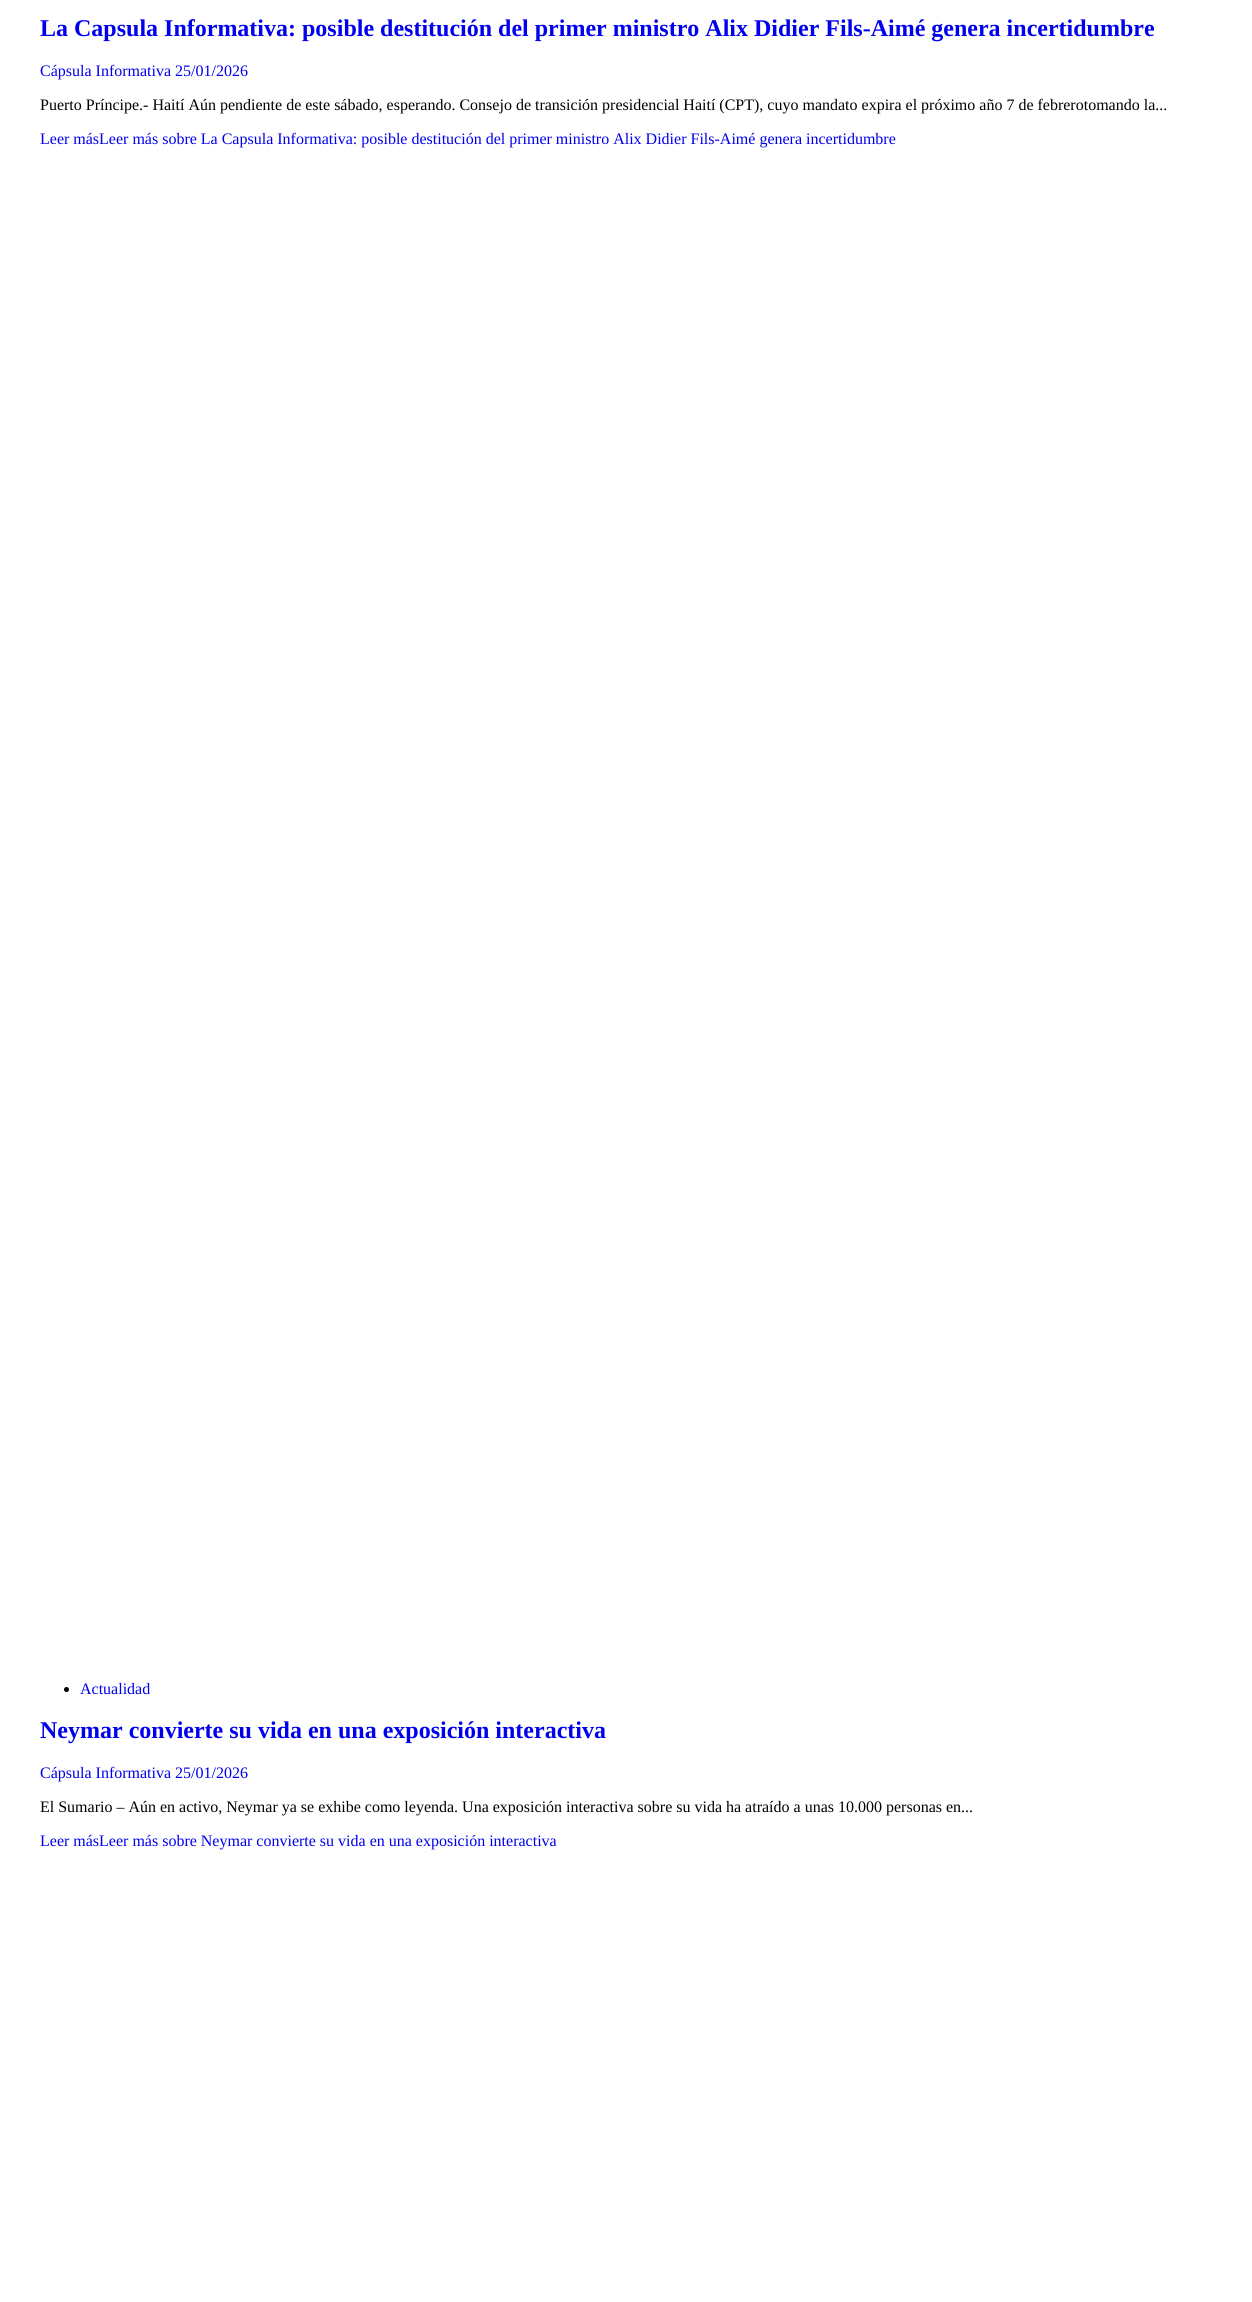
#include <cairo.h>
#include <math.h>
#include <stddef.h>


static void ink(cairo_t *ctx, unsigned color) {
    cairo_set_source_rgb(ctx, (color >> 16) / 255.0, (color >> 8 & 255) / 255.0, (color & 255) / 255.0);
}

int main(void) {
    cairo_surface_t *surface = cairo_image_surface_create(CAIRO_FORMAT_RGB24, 1252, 2302);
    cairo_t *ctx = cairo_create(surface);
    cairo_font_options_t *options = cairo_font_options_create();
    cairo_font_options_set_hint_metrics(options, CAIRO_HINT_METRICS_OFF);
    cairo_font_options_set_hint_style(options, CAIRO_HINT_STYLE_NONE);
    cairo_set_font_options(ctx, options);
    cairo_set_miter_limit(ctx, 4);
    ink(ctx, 0xFFFFFF);
    cairo_paint(ctx);
    cairo_select_font_face(ctx, "Liberation Serif", CAIRO_FONT_SLANT_NORMAL, CAIRO_FONT_WEIGHT_BOLD);
    cairo_set_font_size(ctx, 24);
    ink(ctx, 0x0000EE);
    cairo_move_to(ctx, 40, 36);
    cairo_show_text(ctx, "La Capsula Informativa: posible destitución del primer ministro Alix Didier Fils-Aimé genera incertidumbre");
    cairo_select_font_face(ctx, "Liberation Serif", CAIRO_FONT_SLANT_NORMAL, CAIRO_FONT_WEIGHT_NORMAL);
    cairo_set_font_size(ctx, 16);
    cairo_move_to(ctx, 40, 76);
    cairo_show_text(ctx, "Cápsula Informativa 25/01/2026");
    ink(ctx, 0x000000);
    cairo_move_to(ctx, 40, 110);
    cairo_show_text(ctx, "Puerto Príncipe.- Haití Aún pendiente de este sábado, esperando. Consejo de transición presidencial Haití (CPT), cuyo mandato expira el próximo año 7 de febrerotomando la...");
    ink(ctx, 0x0000EE);
    cairo_move_to(ctx, 40, 144);
    cairo_show_text(ctx, "Leer másLeer más sobre La Capsula Informativa: posible destitución del primer ministro Alix Didier Fils-Aimé genera incertidumbre");
    ink(ctx, 0x000000);
    cairo_new_path(ctx);
    cairo_arc(ctx, 66.5, 1689.5, 2.5, 0, 2 * M_PI);
    cairo_fill(ctx);
    ink(ctx, 0x0000EE);
    cairo_move_to(ctx, 80, 1694);
    cairo_show_text(ctx, "Actualidad");
    cairo_select_font_face(ctx, "Liberation Serif", CAIRO_FONT_SLANT_NORMAL, CAIRO_FONT_WEIGHT_BOLD);
    cairo_set_font_size(ctx, 24);
    cairo_move_to(ctx, 40, 1738);
    cairo_show_text(ctx, "Neymar convierte su vida en una exposición interactiva");
    cairo_select_font_face(ctx, "Liberation Serif", CAIRO_FONT_SLANT_NORMAL, CAIRO_FONT_WEIGHT_NORMAL);
    cairo_set_font_size(ctx, 16);
    cairo_move_to(ctx, 40, 1778);
    cairo_show_text(ctx, "Cápsula Informativa 25/01/2026");
    ink(ctx, 0x000000);
    cairo_move_to(ctx, 40, 1812);
    cairo_show_text(ctx, "El Sumario – Aún en activo, Neymar ya se exhibe como leyenda. Una exposición interactiva sobre su vida ha atraído a unas 10.000 personas en...");
    ink(ctx, 0x0000EE);
    cairo_move_to(ctx, 40, 1846);
    cairo_show_text(ctx, "Leer másLeer más sobre Neymar convierte su vida en una exposición interactiva");
    cairo_surface_write_to_png(surface, "image.png");
    cairo_font_options_destroy(options);
    cairo_destroy(ctx);
    cairo_surface_destroy(surface);
    return 0;
}
